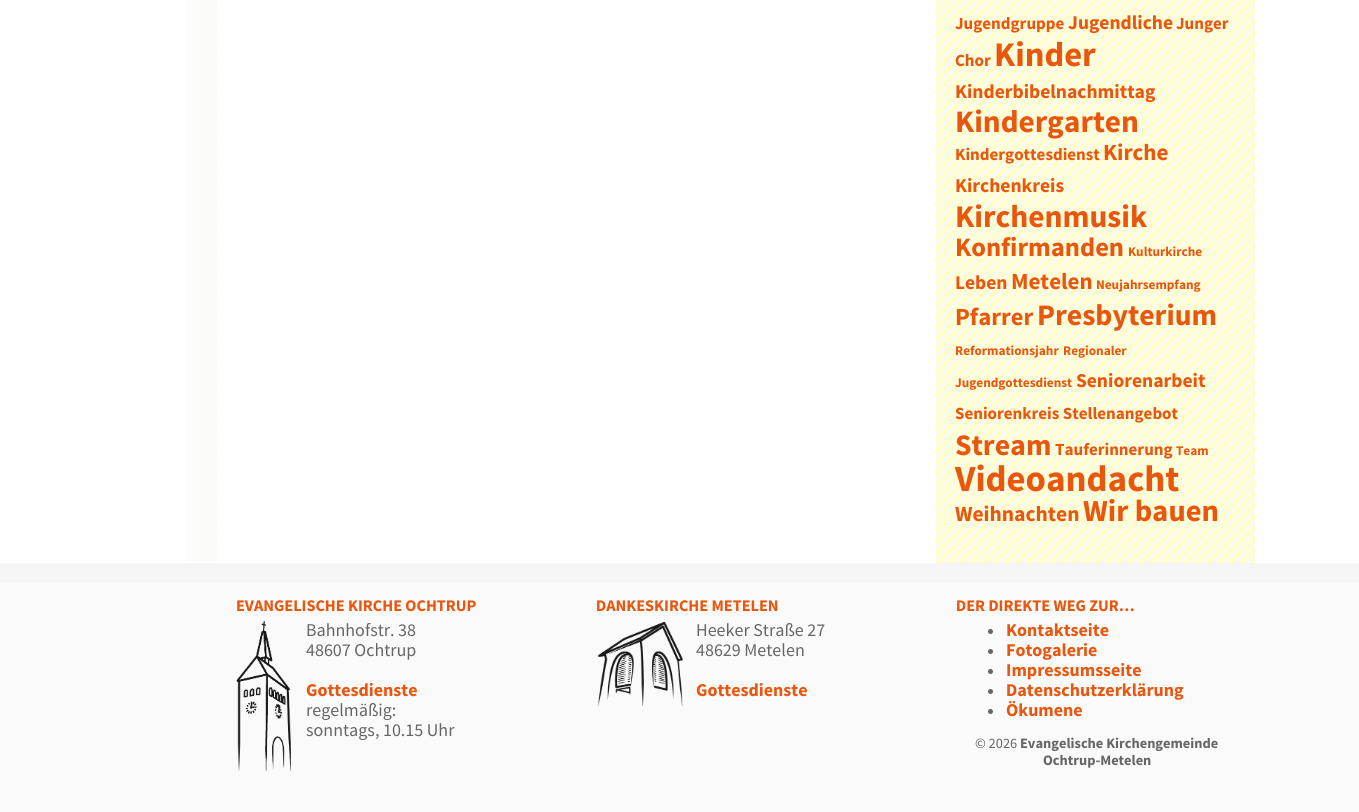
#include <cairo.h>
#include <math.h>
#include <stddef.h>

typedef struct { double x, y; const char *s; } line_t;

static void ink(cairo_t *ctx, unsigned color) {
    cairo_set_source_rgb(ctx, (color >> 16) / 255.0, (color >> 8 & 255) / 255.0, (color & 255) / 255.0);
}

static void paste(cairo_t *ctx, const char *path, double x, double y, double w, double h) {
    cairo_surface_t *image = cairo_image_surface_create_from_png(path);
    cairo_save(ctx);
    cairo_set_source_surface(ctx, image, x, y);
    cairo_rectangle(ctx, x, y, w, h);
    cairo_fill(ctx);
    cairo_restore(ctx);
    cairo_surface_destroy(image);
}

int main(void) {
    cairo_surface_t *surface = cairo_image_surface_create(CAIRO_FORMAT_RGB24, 1359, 812);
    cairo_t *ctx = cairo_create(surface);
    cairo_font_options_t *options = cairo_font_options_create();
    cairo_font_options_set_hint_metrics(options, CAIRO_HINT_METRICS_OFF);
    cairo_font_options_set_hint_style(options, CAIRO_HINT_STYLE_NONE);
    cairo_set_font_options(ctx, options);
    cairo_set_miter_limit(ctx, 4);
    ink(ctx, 0xFFFFFF);
    cairo_paint(ctx);
    paste(ctx, "media/1.png", 186, 0, 31, 562);
    ink(ctx, 0xFFFFCC);
    cairo_rectangle(ctx, 936, 0, 319, 563);
    cairo_fill(ctx);
    paste(ctx, "media/2.png", 936, 0, 319, 563);
    cairo_select_font_face(ctx, "Source Sans Pro", CAIRO_FONT_SLANT_NORMAL, CAIRO_FONT_WEIGHT_BOLD);
    cairo_set_font_size(ctx, 17);
    ink(ctx, 0xE9560D);
    cairo_move_to(ctx, 955, 29);
    cairo_show_text(ctx, "Jugendgruppe");
    cairo_set_font_size(ctx, 19.5);
    cairo_move_to(ctx, 1068, 29);
    cairo_show_text(ctx, "Jugendliche");
    cairo_set_font_size(ctx, 17);
    cairo_move_to(ctx, 1176, 29);
    cairo_show_text(ctx, "Junger");
    cairo_move_to(ctx, 955, 66);
    cairo_show_text(ctx, "Chor");
    cairo_set_font_size(ctx, 34.5);
    cairo_move_to(ctx, 994, 66);
    cairo_show_text(ctx, "Kinder");
    cairo_set_font_size(ctx, 19.5);
    cairo_move_to(ctx, 955, 98);
    cairo_show_text(ctx, "Kinderbibelnachmittag");
    cairo_set_font_size(ctx, 31.25);
    cairo_move_to(ctx, 955, 132);
    cairo_show_text(ctx, "Kindergarten");
    cairo_set_font_size(ctx, 17);
    cairo_move_to(ctx, 955, 160);
    cairo_show_text(ctx, "Kindergottesdienst");
    cairo_set_font_size(ctx, 23);
    cairo_move_to(ctx, 1103, 160);
    cairo_show_text(ctx, "Kirche");
    cairo_set_font_size(ctx, 19.5);
    cairo_move_to(ctx, 955, 192);
    cairo_show_text(ctx, "Kirchenkreis");
    cairo_set_font_size(ctx, 31.5);
    cairo_move_to(ctx, 955, 227);
    cairo_show_text(ctx, "Kirchenmusik");
    cairo_set_font_size(ctx, 26.5);
    cairo_move_to(ctx, 955, 256);
    cairo_show_text(ctx, "Konfirmanden");
    cairo_set_font_size(ctx, 13.25);
    cairo_move_to(ctx, 1128, 256);
    cairo_show_text(ctx, "Kulturkirche");
    cairo_set_font_size(ctx, 19.5);
    cairo_move_to(ctx, 955, 289);
    cairo_show_text(ctx, "Leben");
    cairo_set_font_size(ctx, 23);
    cairo_move_to(ctx, 1011, 289);
    cairo_show_text(ctx, "Metelen");
    cairo_set_font_size(ctx, 13.25);
    cairo_move_to(ctx, 1096, 289);
    cairo_show_text(ctx, "Neujahrsempfang");
    cairo_set_font_size(ctx, 24.5);
    cairo_move_to(ctx, 955, 325);
    cairo_show_text(ctx, "Pfarrer");
    cairo_set_font_size(ctx, 29.75);
    cairo_move_to(ctx, 1037, 325);
    cairo_show_text(ctx, "Presbyterium");
    cairo_set_font_size(ctx, 13.25);
    {
        static const line_t items[] = {
            {955, 355, "Reformationsjahr"},
            {1063, 355, "Regionaler"},
            {955, 387, "Jugendgottesdienst"},
        };
        for (size_t i = 0; i < sizeof items / sizeof *items; i++) {
            cairo_move_to(ctx, items[i].x, items[i].y);
            cairo_show_text(ctx, items[i].s);
        }
    }
    cairo_set_font_size(ctx, 19.5);
    cairo_move_to(ctx, 1076, 387);
    cairo_show_text(ctx, "Seniorenarbeit");
    cairo_set_font_size(ctx, 17);
    cairo_move_to(ctx, 955, 419);
    cairo_show_text(ctx, "Seniorenkreis Stellenangebot");
    cairo_set_font_size(ctx, 29.75);
    cairo_move_to(ctx, 955, 455);
    cairo_show_text(ctx, "Stream");
    cairo_set_font_size(ctx, 17);
    cairo_move_to(ctx, 1055, 455);
    cairo_show_text(ctx, "Tauferinnerung");
    cairo_set_font_size(ctx, 13.25);
    cairo_move_to(ctx, 1176, 455);
    cairo_show_text(ctx, "Team");
    cairo_set_font_size(ctx, 36.75);
    cairo_move_to(ctx, 955, 491);
    cairo_show_text(ctx, "Videoandacht");
    cairo_set_font_size(ctx, 21.5);
    cairo_move_to(ctx, 955, 521);
    cairo_show_text(ctx, "Weihnachten");
    cairo_set_font_size(ctx, 30.5);
    cairo_move_to(ctx, 1083, 521);
    cairo_show_text(ctx, "Wir bauen");
    ink(ctx, 0xFAFAFA);
    cairo_rectangle(ctx, 0, 582, 1359, 230);
    cairo_fill(ctx);
    ink(ctx, 0xF5F5F5);
    cairo_rectangle(ctx, 0, 563, 1359, 19);
    cairo_fill(ctx);
    cairo_set_font_size(ctx, 16.25);
    ink(ctx, 0xE9560D);
    cairo_move_to(ctx, 236, 611);
    cairo_show_text(ctx, "EVANGELISCHE KIRCHE OCHTRUP");
    paste(ctx, "media/3.png", 236, 621, 55, 151);
    cairo_select_font_face(ctx, "Source Sans Pro", CAIRO_FONT_SLANT_NORMAL, CAIRO_FONT_WEIGHT_NORMAL);
    cairo_set_font_size(ctx, 18);
    ink(ctx, 0x666666);
    cairo_move_to(ctx, 306, 636);
    cairo_show_text(ctx, "Bahnhofstr. 38");
    cairo_move_to(ctx, 306, 656);
    cairo_show_text(ctx, "48607 Ochtrup");
    cairo_select_font_face(ctx, "Source Sans Pro", CAIRO_FONT_SLANT_NORMAL, CAIRO_FONT_WEIGHT_BOLD);
    ink(ctx, 0xE9560D);
    cairo_move_to(ctx, 306, 696);
    cairo_show_text(ctx, "Gottesdienste");
    cairo_select_font_face(ctx, "Source Sans Pro", CAIRO_FONT_SLANT_NORMAL, CAIRO_FONT_WEIGHT_NORMAL);
    ink(ctx, 0x666666);
    cairo_move_to(ctx, 306, 716);
    cairo_show_text(ctx, "regelmäßig:");
    cairo_move_to(ctx, 306, 736);
    cairo_show_text(ctx, "sonntags, 10.15 Uhr");
    cairo_select_font_face(ctx, "Source Sans Pro", CAIRO_FONT_SLANT_NORMAL, CAIRO_FONT_WEIGHT_BOLD);
    cairo_set_font_size(ctx, 16.25);
    ink(ctx, 0xE9560D);
    cairo_move_to(ctx, 596, 611);
    cairo_show_text(ctx, "DANKESKIRCHE METELEN");
    paste(ctx, "media/4.png", 597, 621, 86, 86);
    cairo_select_font_face(ctx, "Source Sans Pro", CAIRO_FONT_SLANT_NORMAL, CAIRO_FONT_WEIGHT_NORMAL);
    cairo_set_font_size(ctx, 18);
    ink(ctx, 0x666666);
    cairo_move_to(ctx, 696, 636);
    cairo_show_text(ctx, "Heeker Straße 27");
    cairo_move_to(ctx, 696, 656);
    cairo_show_text(ctx, "48629 Metelen");
    cairo_select_font_face(ctx, "Source Sans Pro", CAIRO_FONT_SLANT_NORMAL, CAIRO_FONT_WEIGHT_BOLD);
    ink(ctx, 0xE9560D);
    cairo_move_to(ctx, 696, 696);
    cairo_show_text(ctx, "Gottesdienste");
    cairo_set_font_size(ctx, 16.25);
    cairo_move_to(ctx, 956, 611);
    cairo_show_text(ctx, "DER DIREKTE WEG ZUR…");
    ink(ctx, 0x666666);
    cairo_new_path(ctx);
    cairo_arc(ctx, 990.5, 631.5, 2.5, 0, 2 * M_PI);
    cairo_fill(ctx);
    cairo_set_font_size(ctx, 18);
    ink(ctx, 0xE9560D);
    cairo_move_to(ctx, 1006, 636);
    cairo_show_text(ctx, "Kontaktseite");
    ink(ctx, 0x666666);
    cairo_new_path(ctx);
    cairo_arc(ctx, 990.5, 651.5, 2.5, 0, 2 * M_PI);
    cairo_fill(ctx);
    ink(ctx, 0xE9560D);
    cairo_move_to(ctx, 1006, 656);
    cairo_show_text(ctx, "Fotogalerie");
    ink(ctx, 0x666666);
    cairo_new_path(ctx);
    cairo_arc(ctx, 990.5, 671.5, 2.5, 0, 2 * M_PI);
    cairo_fill(ctx);
    ink(ctx, 0xE9560D);
    cairo_move_to(ctx, 1006, 676);
    cairo_show_text(ctx, "Impressumsseite");
    ink(ctx, 0x666666);
    cairo_new_path(ctx);
    cairo_arc(ctx, 990.5, 691.5, 2.5, 0, 2 * M_PI);
    cairo_fill(ctx);
    ink(ctx, 0xE9560D);
    cairo_move_to(ctx, 1006, 696);
    cairo_show_text(ctx, "Datenschutzerklärung");
    ink(ctx, 0x666666);
    cairo_new_path(ctx);
    cairo_arc(ctx, 990.5, 711.5, 2.5, 0, 2 * M_PI);
    cairo_fill(ctx);
    ink(ctx, 0xE9560D);
    cairo_move_to(ctx, 1006, 716);
    cairo_show_text(ctx, "Ökumene");
    cairo_select_font_face(ctx, "Source Sans Pro", CAIRO_FONT_SLANT_NORMAL, CAIRO_FONT_WEIGHT_NORMAL);
    cairo_set_font_size(ctx, 14.4);
    ink(ctx, 0x666666);
    cairo_move_to(ctx, 975, 748);
    cairo_show_text(ctx, "© 2026");
    cairo_select_font_face(ctx, "Source Sans Pro", CAIRO_FONT_SLANT_NORMAL, CAIRO_FONT_WEIGHT_BOLD);
    cairo_move_to(ctx, 1020, 748);
    cairo_show_text(ctx, "Evangelische Kirchengemeinde");
    cairo_move_to(ctx, 1043, 765);
    cairo_show_text(ctx, "Ochtrup-Metelen");
    cairo_surface_write_to_png(surface, "image.png");
    cairo_font_options_destroy(options);
    cairo_destroy(ctx);
    cairo_surface_destroy(surface);
    return 0;
}
